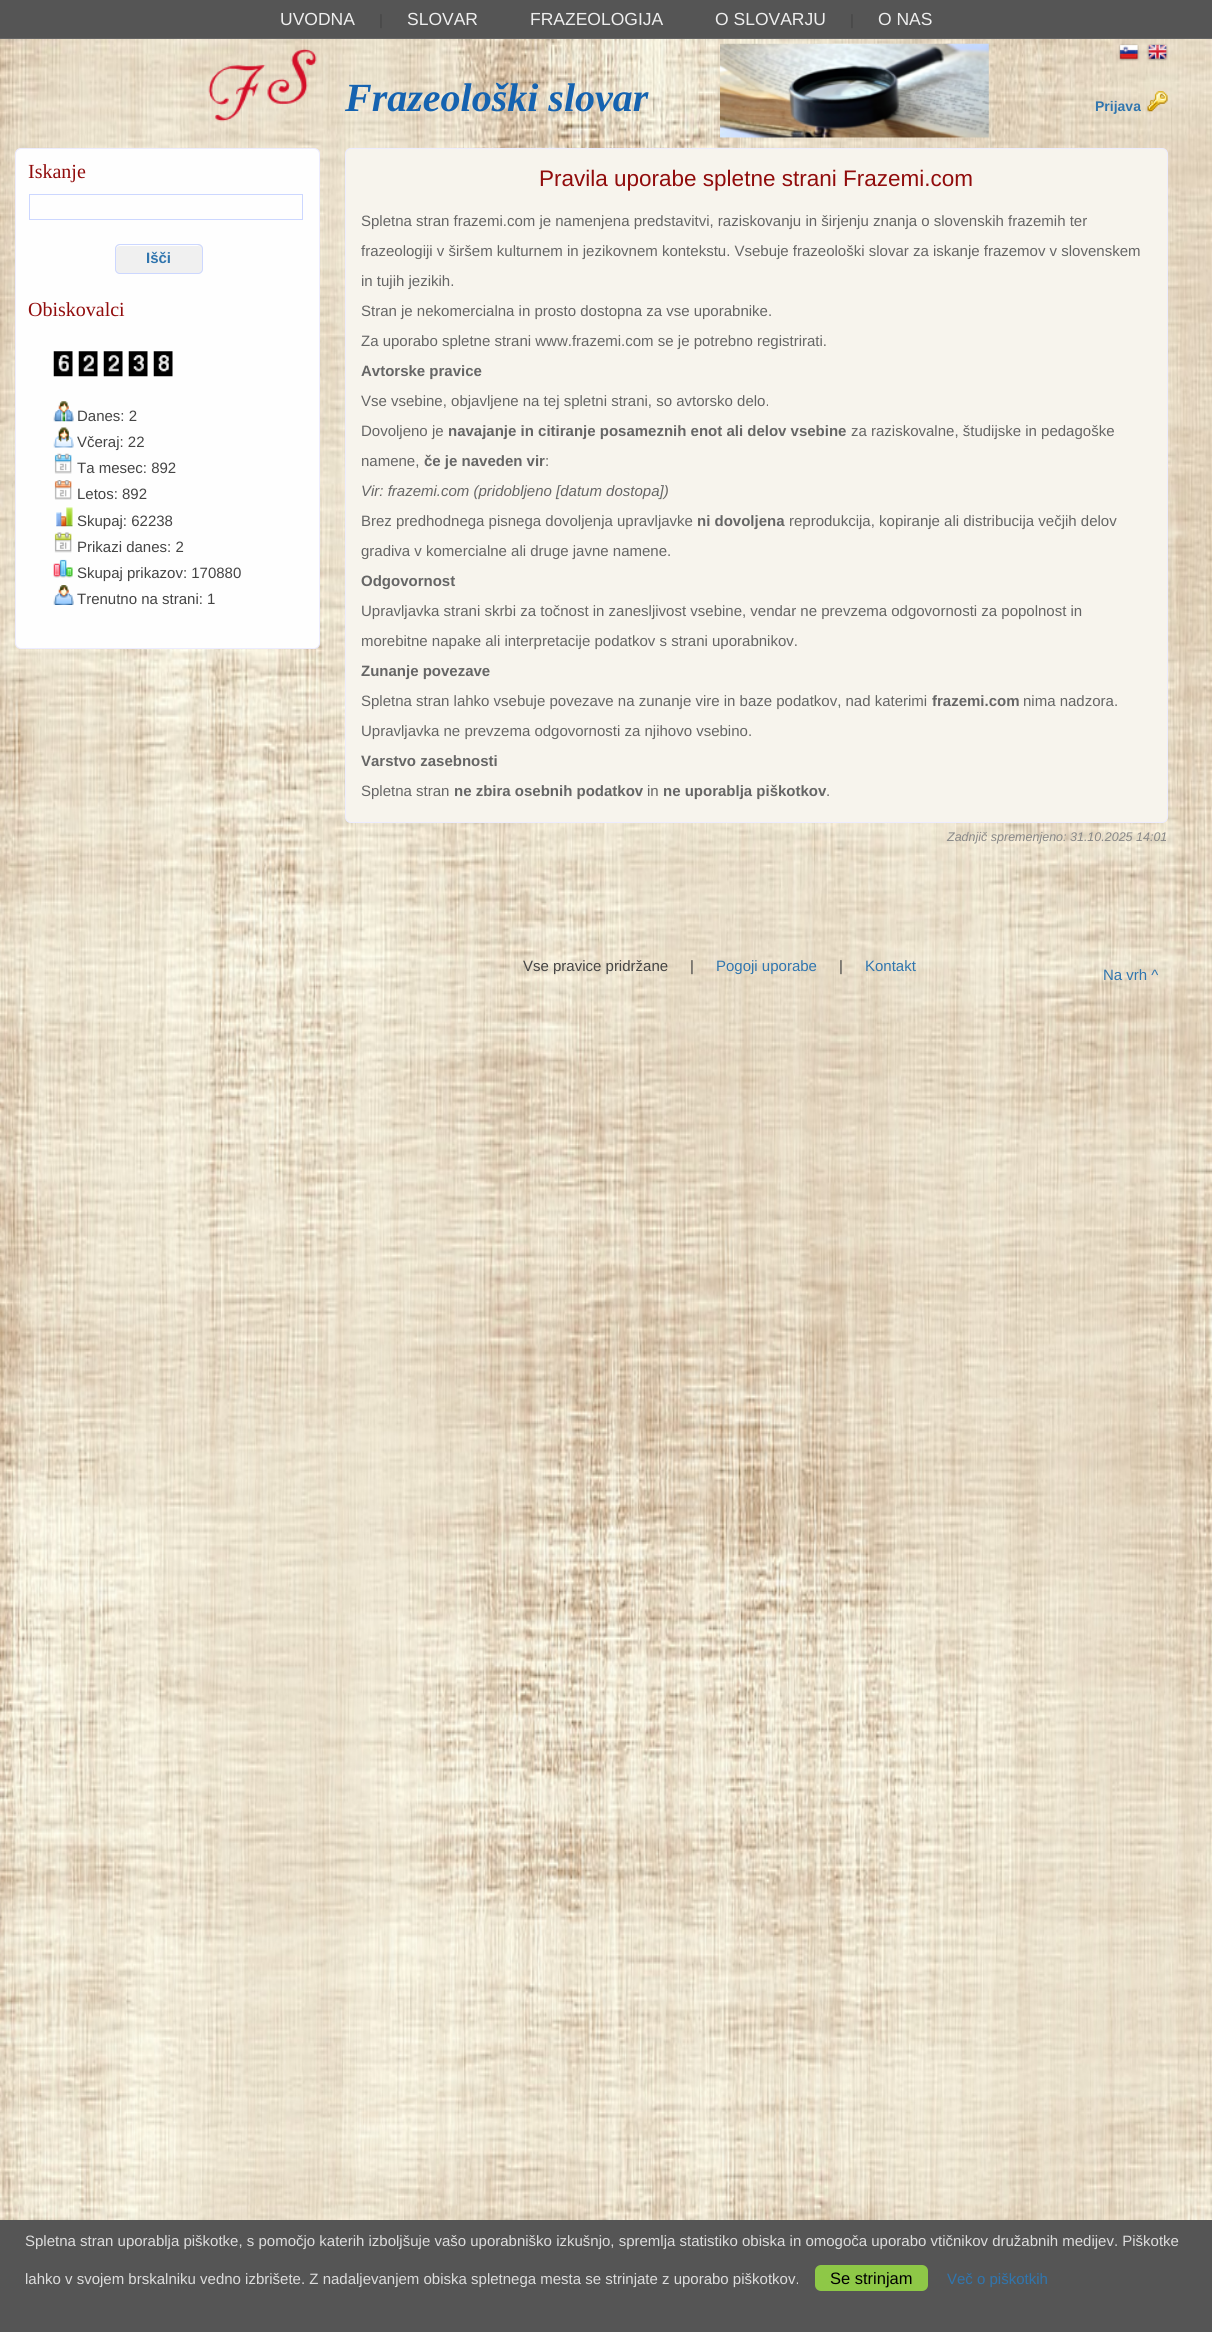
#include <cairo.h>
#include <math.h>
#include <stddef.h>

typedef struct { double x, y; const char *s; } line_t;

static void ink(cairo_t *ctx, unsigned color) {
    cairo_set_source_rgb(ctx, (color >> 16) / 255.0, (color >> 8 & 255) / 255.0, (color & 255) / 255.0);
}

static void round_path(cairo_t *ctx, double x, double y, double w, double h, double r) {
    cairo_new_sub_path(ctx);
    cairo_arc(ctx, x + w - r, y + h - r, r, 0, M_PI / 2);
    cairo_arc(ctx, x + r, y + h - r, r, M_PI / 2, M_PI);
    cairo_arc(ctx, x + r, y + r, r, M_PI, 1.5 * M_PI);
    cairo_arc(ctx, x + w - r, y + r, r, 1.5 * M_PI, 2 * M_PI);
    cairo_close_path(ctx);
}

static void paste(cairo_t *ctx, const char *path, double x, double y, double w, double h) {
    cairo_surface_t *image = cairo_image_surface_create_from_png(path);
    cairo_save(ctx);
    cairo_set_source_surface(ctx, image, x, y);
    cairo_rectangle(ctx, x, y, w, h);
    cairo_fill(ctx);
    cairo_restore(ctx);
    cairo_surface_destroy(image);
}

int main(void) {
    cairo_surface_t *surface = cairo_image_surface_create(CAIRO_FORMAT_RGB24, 1212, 2332);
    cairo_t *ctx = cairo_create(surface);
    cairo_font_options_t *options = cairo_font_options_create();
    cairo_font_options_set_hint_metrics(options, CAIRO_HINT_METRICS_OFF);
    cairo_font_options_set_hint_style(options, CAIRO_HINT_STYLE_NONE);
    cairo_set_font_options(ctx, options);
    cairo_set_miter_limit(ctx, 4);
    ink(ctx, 0xFFFFFF);
    cairo_paint(ctx);
    ink(ctx, 0x555555);
    cairo_rectangle(ctx, 0, 0, 1212, 38);
    cairo_fill(ctx);
    ink(ctx, 0x666666);
    cairo_rectangle(ctx, 0, 38, 1212, 1);
    cairo_fill(ctx);
    cairo_select_font_face(ctx, "Liberation Sans", CAIRO_FONT_SLANT_NORMAL, CAIRO_FONT_WEIGHT_NORMAL);
    cairo_set_font_size(ctx, 17.5);
    ink(ctx, 0xEEEEEE);
    cairo_move_to(ctx, 280, 25);
    cairo_show_text(ctx, "UVODNA");
    cairo_set_font_size(ctx, 15);
    ink(ctx, 0x444444);
    cairo_move_to(ctx, 379, 25);
    cairo_show_text(ctx, "|");
    cairo_set_font_size(ctx, 17.5);
    ink(ctx, 0xEEEEEE);
    {
        static const line_t items[] = {
            {407, 25, "SLOVAR"},
            {530, 25, "FRAZEOLOGIJA"},
            {715, 25, "O SLOVARJU"},
        };
        for (size_t i = 0; i < sizeof items / sizeof *items; i++) {
            cairo_move_to(ctx, items[i].x, items[i].y);
            cairo_show_text(ctx, items[i].s);
        }
    }
    cairo_set_font_size(ctx, 15);
    ink(ctx, 0x444444);
    cairo_move_to(ctx, 850, 25);
    cairo_show_text(ctx, "|");
    cairo_set_font_size(ctx, 17.5);
    ink(ctx, 0xEEEEEE);
    cairo_move_to(ctx, 878, 25);
    cairo_show_text(ctx, "O NAS");
    paste(ctx, "media/1.png", 0, 39, 1212, 2181);
    paste(ctx, "media/2.png", 208, 48, 109, 74);
    cairo_select_font_face(ctx, "Liberation Serif", CAIRO_FONT_SLANT_ITALIC, CAIRO_FONT_WEIGHT_BOLD);
    cairo_set_font_size(ctx, 40);
    ink(ctx, 0x1563B0);
    cairo_move_to(ctx, 345, 111);
    cairo_show_text(ctx, "Frazeološki slovar");
    paste(ctx, "media/3.png", 720, 43, 269, 95);
    cairo_select_font_face(ctx, "Liberation Sans", CAIRO_FONT_SLANT_NORMAL, CAIRO_FONT_WEIGHT_BOLD);
    cairo_set_font_size(ctx, 14);
    ink(ctx, 0x3075AE);
    cairo_move_to(ctx, 1095, 111);
    cairo_show_text(ctx, "Prijava");
    paste(ctx, "media/4.png", 1147, 91, 21, 21);
    paste(ctx, "media/5.png", 1118, 43, 21, 18);
    paste(ctx, "media/6.png", 1147, 43, 21, 18);
    ink(ctx, 0xFEFEFE);
    round_path(ctx, 15.5, 148.5, 304, 500, 5.5);
    cairo_fill_preserve(ctx);
    ink(ctx, 0xECECFF);
    cairo_set_line_width(ctx, 1);
    cairo_stroke(ctx);
    cairo_select_font_face(ctx, "Liberation Serif", CAIRO_FONT_SLANT_NORMAL, CAIRO_FONT_WEIGHT_NORMAL);
    cairo_set_font_size(ctx, 20);
    ink(ctx, 0x910C0C);
    cairo_move_to(ctx, 28, 178);
    cairo_show_text(ctx, "Iskanje");
    cairo_rectangle(ctx, 29.5, 194.5, 273, 25);
    ink(ctx, 0xCCD7FF);
    cairo_stroke(ctx);
    ink(ctx, 0xF0F0F0);
    round_path(ctx, 115, 244, 88, 30, 5);
    cairo_fill(ctx);
    ink(ctx, 0xFFFFFF);
    cairo_new_path(ctx);
    cairo_move_to(ctx, 120, 246);
    cairo_line_to(ctx, 198, 246);
    cairo_curve_to(ctx, 200, 246, 201, 248, 201, 250);
    cairo_curve_to(ctx, 201, 242, 189, 245, 184, 245);
    cairo_line_to(ctx, 133, 245);
    cairo_curve_to(ctx, 128, 245, 116, 242, 116, 250);
    cairo_curve_to(ctx, 116, 248, 118, 246, 120, 246);
    cairo_close_path(ctx);
    cairo_fill(ctx);
    round_path(ctx, 115.5, 244.5, 87, 29, 4.5);
    ink(ctx, 0xCCD7FF);
    cairo_stroke(ctx);
    cairo_select_font_face(ctx, "Liberation Sans", CAIRO_FONT_SLANT_NORMAL, CAIRO_FONT_WEIGHT_BOLD);
    cairo_set_font_size(ctx, 15);
    ink(ctx, 0x3075AE);
    cairo_move_to(ctx, 146, 263);
    cairo_show_text(ctx, "Išči");
    cairo_select_font_face(ctx, "Liberation Serif", CAIRO_FONT_SLANT_NORMAL, CAIRO_FONT_WEIGHT_NORMAL);
    cairo_set_font_size(ctx, 20);
    ink(ctx, 0x910C0C);
    cairo_move_to(ctx, 28, 316);
    cairo_show_text(ctx, "Obiskovalci");
    paste(ctx, "media/7.png", 53, 351, 20, 26);
    paste(ctx, "media/8.png", 78, 351, 20, 26);
    paste(ctx, "media/9.png", 103, 351, 20, 26);
    paste(ctx, "media/10.png", 128, 351, 20, 26);
    paste(ctx, "media/11.png", 153, 351, 20, 26);
    paste(ctx, "media/12.png", 53, 401, 21, 21);
    cairo_select_font_face(ctx, "Liberation Sans", CAIRO_FONT_SLANT_NORMAL, CAIRO_FONT_WEIGHT_NORMAL);
    cairo_set_font_size(ctx, 15);
    ink(ctx, 0x444444);
    cairo_move_to(ctx, 77, 421);
    cairo_show_text(ctx, "Danes: 2");
    paste(ctx, "media/13.png", 53, 427, 21, 21);
    cairo_move_to(ctx, 77, 447);
    cairo_show_text(ctx, "Včeraj: 22");
    paste(ctx, "media/14.png", 54, 453, 18, 21);
    cairo_move_to(ctx, 77, 473);
    cairo_show_text(ctx, "Ta mesec: 892");
    paste(ctx, "media/15.png", 54, 480, 18, 20);
    cairo_move_to(ctx, 77, 499);
    cairo_show_text(ctx, "Letos: 892");
    paste(ctx, "media/16.png", 56, 507, 17, 20);
    cairo_move_to(ctx, 77, 526);
    cairo_show_text(ctx, "Skupaj: 62238");
    paste(ctx, "media/17.png", 54, 532, 18, 21);
    cairo_move_to(ctx, 77, 552);
    cairo_show_text(ctx, "Prikazi danes: 2");
    paste(ctx, "media/18.png", 53, 559, 20, 19);
    cairo_move_to(ctx, 77, 578);
    cairo_show_text(ctx, "Skupaj prikazov: 170880");
    paste(ctx, "media/19.png", 53, 585, 21, 20);
    cairo_move_to(ctx, 77, 604);
    cairo_show_text(ctx, "Trenutno na strani: 1");
    ink(ctx, 0xF7F4ED);
    round_path(ctx, 345.5, 148.5, 822, 674, 5.5);
    cairo_fill_preserve(ctx);
    ink(ctx, 0xECECFF);
    cairo_stroke(ctx);
    cairo_set_font_size(ctx, 22.5);
    ink(ctx, 0x910C0C);
    cairo_move_to(ctx, 539, 186);
    cairo_show_text(ctx, "Pravila uporabe spletne strani Frazemi.com");
    cairo_set_font_size(ctx, 15);
    ink(ctx, 0x666666);
    {
        static const line_t items[] = {
            {361, 226, "Spletna stran frazemi.com je namenjena predstavitvi, raziskovanju in širjenju znanja o slovenskih frazemih ter"},
            {361, 256, "frazeologiji v širšem kulturnem in jezikovnem kontekstu. Vsebuje frazeološki slovar za iskanje frazemov v slovenskem"},
            {361, 286, "in tujih jezikih."},
            {361, 316, "Stran je nekomercialna in prosto dostopna za vse uporabnike."},
            {361, 346, "Za uporabo spletne strani www.frazemi.com se je potrebno registrirati."},
        };
        for (size_t i = 0; i < sizeof items / sizeof *items; i++) {
            cairo_move_to(ctx, items[i].x, items[i].y);
            cairo_show_text(ctx, items[i].s);
        }
    }
    cairo_select_font_face(ctx, "Liberation Sans", CAIRO_FONT_SLANT_NORMAL, CAIRO_FONT_WEIGHT_BOLD);
    cairo_move_to(ctx, 361, 376);
    cairo_show_text(ctx, "Avtorske pravice");
    cairo_select_font_face(ctx, "Liberation Sans", CAIRO_FONT_SLANT_NORMAL, CAIRO_FONT_WEIGHT_NORMAL);
    cairo_move_to(ctx, 361, 406);
    cairo_show_text(ctx, "Vse vsebine, objavljene na tej spletni strani, so avtorsko delo.");
    cairo_move_to(ctx, 361, 436);
    cairo_show_text(ctx, "Dovoljeno je");
    cairo_select_font_face(ctx, "Liberation Sans", CAIRO_FONT_SLANT_NORMAL, CAIRO_FONT_WEIGHT_BOLD);
    cairo_move_to(ctx, 448, 436);
    cairo_show_text(ctx, "navajanje in citiranje posameznih enot ali delov vsebine");
    cairo_select_font_face(ctx, "Liberation Sans", CAIRO_FONT_SLANT_NORMAL, CAIRO_FONT_WEIGHT_NORMAL);
    cairo_move_to(ctx, 851, 436);
    cairo_show_text(ctx, "za raziskovalne, študijske in pedagoške");
    cairo_move_to(ctx, 361, 466);
    cairo_show_text(ctx, "namene,");
    cairo_select_font_face(ctx, "Liberation Sans", CAIRO_FONT_SLANT_NORMAL, CAIRO_FONT_WEIGHT_BOLD);
    cairo_move_to(ctx, 424, 466);
    cairo_show_text(ctx, "če je naveden vir");
    cairo_select_font_face(ctx, "Liberation Sans", CAIRO_FONT_SLANT_NORMAL, CAIRO_FONT_WEIGHT_NORMAL);
    cairo_move_to(ctx, 545, 466);
    cairo_show_text(ctx, ":");
    cairo_select_font_face(ctx, "Liberation Sans", CAIRO_FONT_SLANT_ITALIC, CAIRO_FONT_WEIGHT_NORMAL);
    cairo_move_to(ctx, 361, 496);
    cairo_show_text(ctx, "Vir: frazemi.com (pridobljeno [datum dostopa])");
    cairo_select_font_face(ctx, "Liberation Sans", CAIRO_FONT_SLANT_NORMAL, CAIRO_FONT_WEIGHT_NORMAL);
    cairo_move_to(ctx, 361, 526);
    cairo_show_text(ctx, "Brez predhodnega pisnega dovoljenja upravljavke");
    cairo_select_font_face(ctx, "Liberation Sans", CAIRO_FONT_SLANT_NORMAL, CAIRO_FONT_WEIGHT_BOLD);
    cairo_move_to(ctx, 697, 526);
    cairo_show_text(ctx, "ni dovoljena");
    cairo_select_font_face(ctx, "Liberation Sans", CAIRO_FONT_SLANT_NORMAL, CAIRO_FONT_WEIGHT_NORMAL);
    cairo_move_to(ctx, 789, 526);
    cairo_show_text(ctx, "reprodukcija, kopiranje ali distribucija večjih delov");
    cairo_move_to(ctx, 361, 556);
    cairo_show_text(ctx, "gradiva v komercialne ali druge javne namene.");
    cairo_select_font_face(ctx, "Liberation Sans", CAIRO_FONT_SLANT_NORMAL, CAIRO_FONT_WEIGHT_BOLD);
    cairo_move_to(ctx, 361, 586);
    cairo_show_text(ctx, "Odgovornost");
    cairo_select_font_face(ctx, "Liberation Sans", CAIRO_FONT_SLANT_NORMAL, CAIRO_FONT_WEIGHT_NORMAL);
    cairo_move_to(ctx, 361, 616);
    cairo_show_text(ctx, "Upravljavka strani skrbi za točnost in zanesljivost vsebine, vendar ne prevzema odgovornosti za popolnost in");
    cairo_move_to(ctx, 361, 646);
    cairo_show_text(ctx, "morebitne napake ali interpretacije podatkov s strani uporabnikov.");
    cairo_select_font_face(ctx, "Liberation Sans", CAIRO_FONT_SLANT_NORMAL, CAIRO_FONT_WEIGHT_BOLD);
    cairo_move_to(ctx, 361, 676);
    cairo_show_text(ctx, "Zunanje povezave");
    cairo_select_font_face(ctx, "Liberation Sans", CAIRO_FONT_SLANT_NORMAL, CAIRO_FONT_WEIGHT_NORMAL);
    cairo_move_to(ctx, 361, 706);
    cairo_show_text(ctx, "Spletna stran lahko vsebuje povezave na zunanje vire in baze podatkov, nad katerimi");
    cairo_select_font_face(ctx, "Liberation Sans", CAIRO_FONT_SLANT_NORMAL, CAIRO_FONT_WEIGHT_BOLD);
    cairo_move_to(ctx, 932, 706);
    cairo_show_text(ctx, "frazemi.com");
    cairo_select_font_face(ctx, "Liberation Sans", CAIRO_FONT_SLANT_NORMAL, CAIRO_FONT_WEIGHT_NORMAL);
    cairo_move_to(ctx, 1023, 706);
    cairo_show_text(ctx, "nima nadzora.");
    cairo_move_to(ctx, 361, 736);
    cairo_show_text(ctx, "Upravljavka ne prevzema odgovornosti za njihovo vsebino.");
    cairo_select_font_face(ctx, "Liberation Sans", CAIRO_FONT_SLANT_NORMAL, CAIRO_FONT_WEIGHT_BOLD);
    cairo_move_to(ctx, 361, 766);
    cairo_show_text(ctx, "Varstvo zasebnosti");
    cairo_select_font_face(ctx, "Liberation Sans", CAIRO_FONT_SLANT_NORMAL, CAIRO_FONT_WEIGHT_NORMAL);
    cairo_move_to(ctx, 361, 796);
    cairo_show_text(ctx, "Spletna stran");
    cairo_select_font_face(ctx, "Liberation Sans", CAIRO_FONT_SLANT_NORMAL, CAIRO_FONT_WEIGHT_BOLD);
    cairo_move_to(ctx, 454, 796);
    cairo_show_text(ctx, "ne zbira osebnih podatkov");
    cairo_select_font_face(ctx, "Liberation Sans", CAIRO_FONT_SLANT_NORMAL, CAIRO_FONT_WEIGHT_NORMAL);
    cairo_move_to(ctx, 647, 796);
    cairo_show_text(ctx, "in");
    cairo_select_font_face(ctx, "Liberation Sans", CAIRO_FONT_SLANT_NORMAL, CAIRO_FONT_WEIGHT_BOLD);
    cairo_move_to(ctx, 663, 796);
    cairo_show_text(ctx, "ne uporablja piškotkov");
    cairo_select_font_face(ctx, "Liberation Sans", CAIRO_FONT_SLANT_NORMAL, CAIRO_FONT_WEIGHT_NORMAL);
    cairo_move_to(ctx, 826, 796);
    cairo_show_text(ctx, ".");
    cairo_select_font_face(ctx, "Liberation Sans", CAIRO_FONT_SLANT_ITALIC, CAIRO_FONT_WEIGHT_NORMAL);
    cairo_set_font_size(ctx, 12.5);
    ink(ctx, 0x888888);
    cairo_move_to(ctx, 947, 841);
    cairo_show_text(ctx, "Zadnjič spremenjeno: 31.10.2025 14:01");
    cairo_select_font_face(ctx, "Liberation Sans", CAIRO_FONT_SLANT_NORMAL, CAIRO_FONT_WEIGHT_NORMAL);
    cairo_set_font_size(ctx, 15);
    ink(ctx, 0x444444);
    cairo_move_to(ctx, 523, 971);
    cairo_show_text(ctx, "Vse pravice pridržane");
    cairo_move_to(ctx, 690, 971);
    cairo_show_text(ctx, "|");
    ink(ctx, 0x3075AE);
    cairo_move_to(ctx, 716, 971);
    cairo_show_text(ctx, "Pogoji uporabe");
    ink(ctx, 0x444444);
    cairo_move_to(ctx, 839, 971);
    cairo_show_text(ctx, "|");
    ink(ctx, 0x3075AE);
    cairo_move_to(ctx, 865, 971);
    cairo_show_text(ctx, "Kontakt");
    cairo_move_to(ctx, 1103, 980);
    cairo_show_text(ctx, "Na vrh ^");
    ink(ctx, 0x555555);
    cairo_rectangle(ctx, 0, 2220, 1212, 112);
    cairo_fill(ctx);
    ink(ctx, 0xDDDDDD);
    cairo_move_to(ctx, 25, 2246);
    cairo_show_text(ctx, "Spletna stran uporablja piškotke, s pomočjo katerih izboljšuje vašo uporabniško izkušnjo, spremlja statistiko obiska in omogoča uporabo vtičnikov družabnih medijev. Piškotke");
    cairo_move_to(ctx, 25, 2284);
    cairo_show_text(ctx, "lahko v svojem brskalniku vedno izbrišete. Z nadaljevanjem obiska spletnega mesta se strinjate z uporabo piškotkov.");
    ink(ctx, 0x8EC847);
    round_path(ctx, 815, 2265, 113, 26, 6);
    cairo_fill(ctx);
    cairo_set_font_size(ctx, 16.5);
    ink(ctx, 0x000000);
    cairo_move_to(ctx, 830, 2284);
    cairo_show_text(ctx, "Se strinjam");
    cairo_set_font_size(ctx, 15);
    ink(ctx, 0x3075AE);
    cairo_move_to(ctx, 947, 2284);
    cairo_show_text(ctx, "Več o piškotkih");
    cairo_surface_write_to_png(surface, "image.png");
    cairo_font_options_destroy(options);
    cairo_destroy(ctx);
    cairo_surface_destroy(surface);
    return 0;
}
